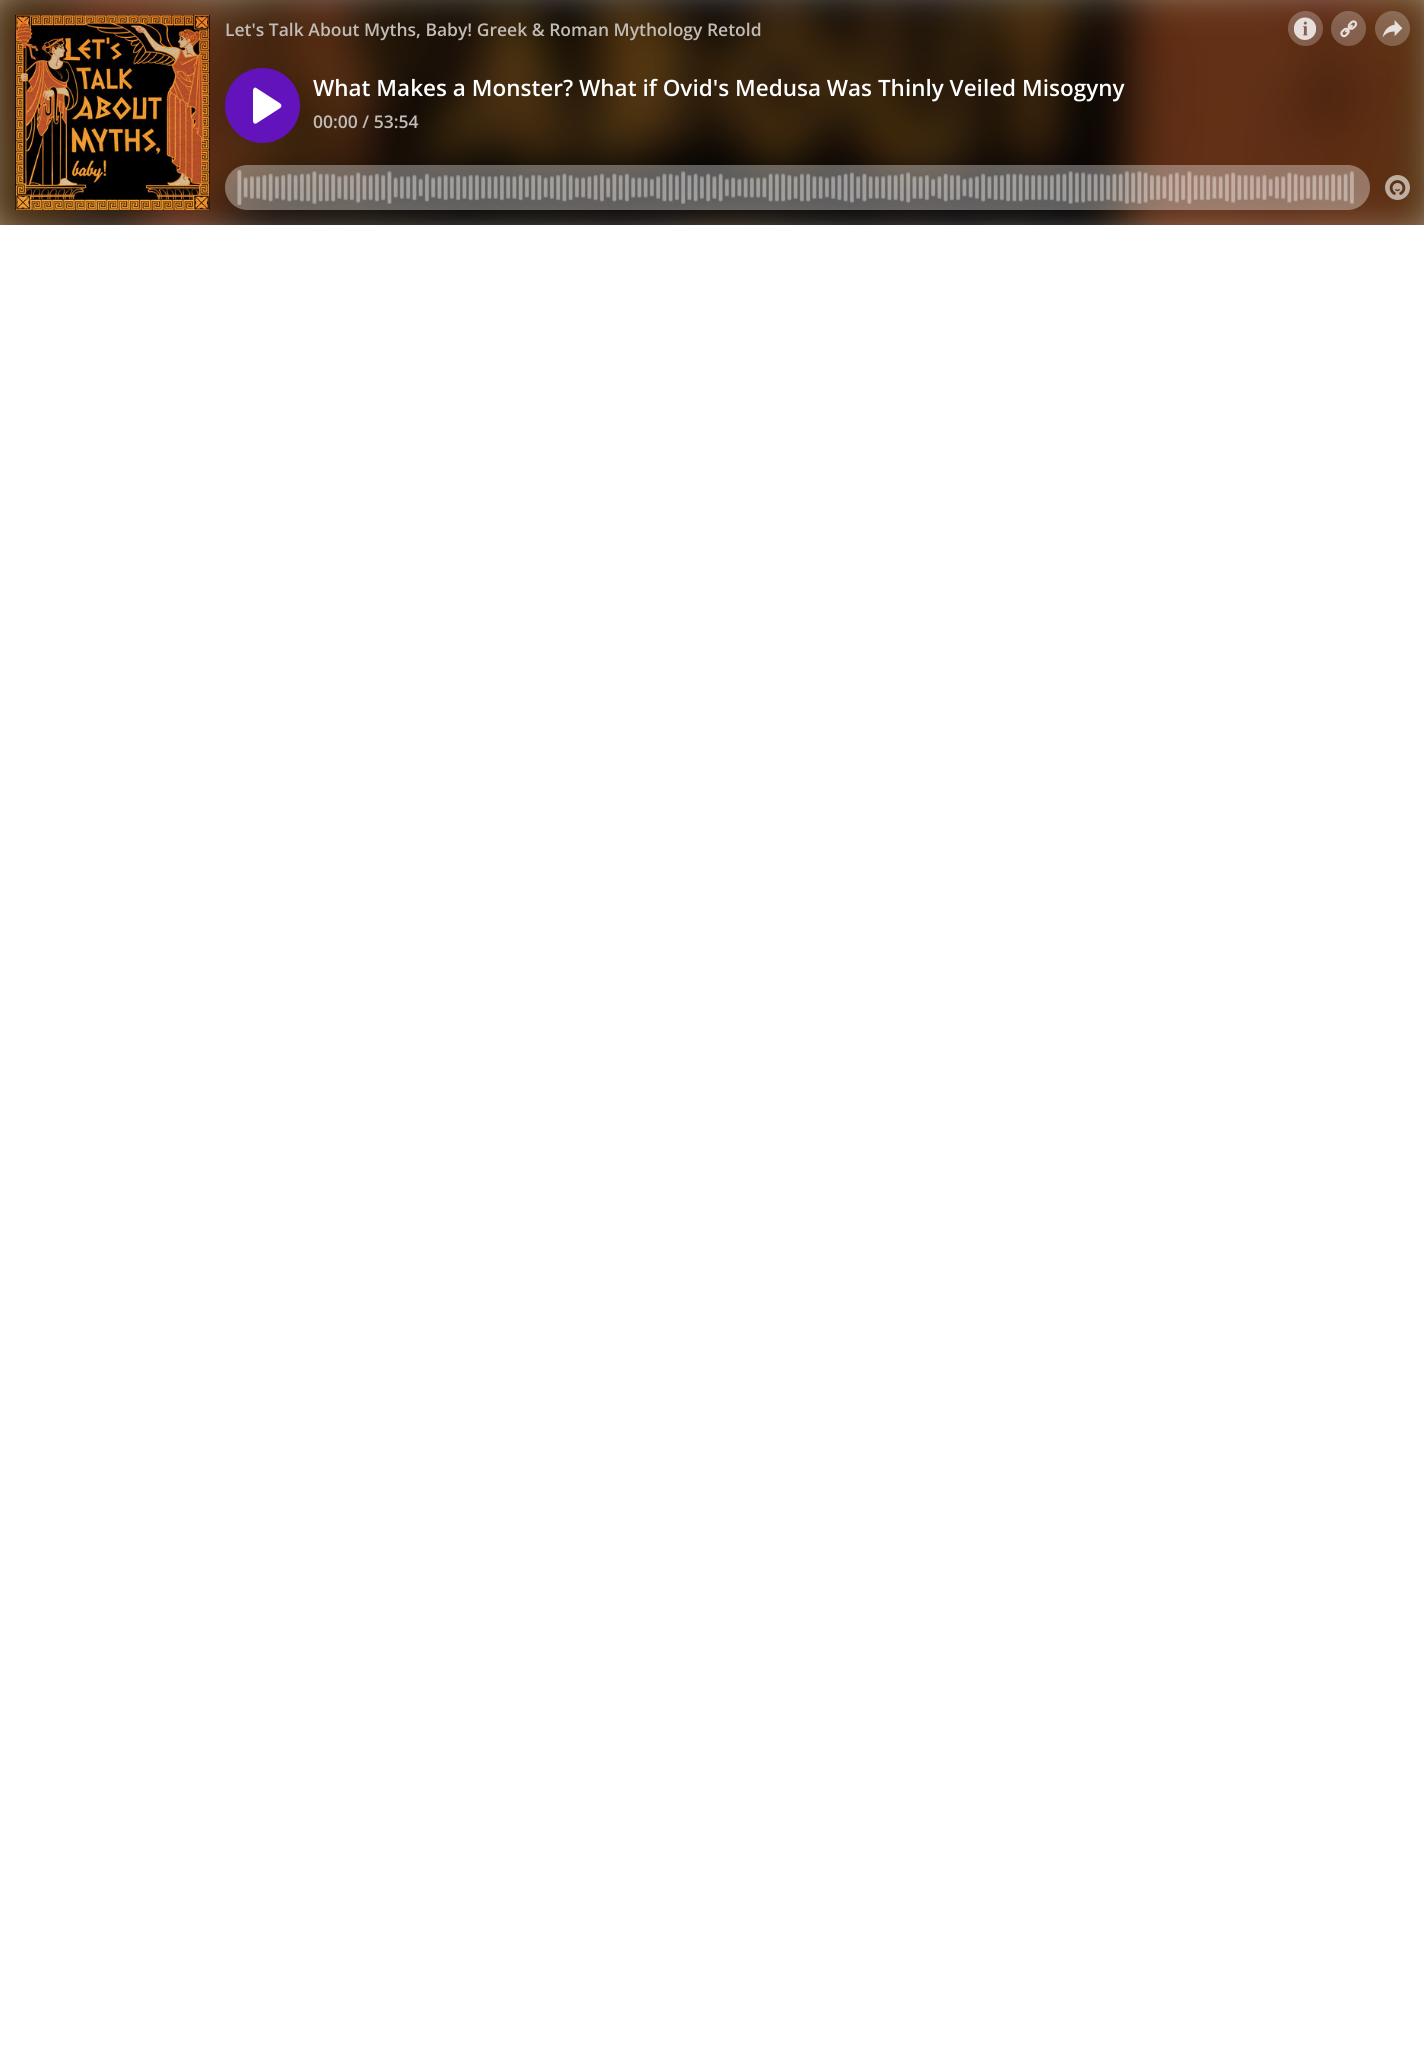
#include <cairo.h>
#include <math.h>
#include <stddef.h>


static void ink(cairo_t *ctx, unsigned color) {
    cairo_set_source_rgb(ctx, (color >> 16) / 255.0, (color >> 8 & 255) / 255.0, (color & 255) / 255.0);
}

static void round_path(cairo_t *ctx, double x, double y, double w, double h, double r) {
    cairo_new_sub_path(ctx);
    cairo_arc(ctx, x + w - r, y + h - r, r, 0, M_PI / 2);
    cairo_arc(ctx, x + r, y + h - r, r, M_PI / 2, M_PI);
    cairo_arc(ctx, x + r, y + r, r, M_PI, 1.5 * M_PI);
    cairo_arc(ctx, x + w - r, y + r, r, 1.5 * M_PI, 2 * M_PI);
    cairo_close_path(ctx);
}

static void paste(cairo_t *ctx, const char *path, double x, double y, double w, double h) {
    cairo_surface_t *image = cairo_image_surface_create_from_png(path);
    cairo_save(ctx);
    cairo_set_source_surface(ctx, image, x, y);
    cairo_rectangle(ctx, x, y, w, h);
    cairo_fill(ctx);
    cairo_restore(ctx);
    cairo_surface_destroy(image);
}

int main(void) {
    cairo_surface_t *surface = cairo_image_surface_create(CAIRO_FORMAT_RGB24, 1424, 2059);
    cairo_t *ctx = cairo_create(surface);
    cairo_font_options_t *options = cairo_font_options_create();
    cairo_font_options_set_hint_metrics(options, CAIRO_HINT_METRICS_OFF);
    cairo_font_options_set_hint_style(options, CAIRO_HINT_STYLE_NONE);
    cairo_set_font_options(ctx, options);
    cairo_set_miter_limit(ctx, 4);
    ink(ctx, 0xFFFFFF);
    cairo_paint(ctx);
    paste(ctx, "media/1.png", 0, 0, 1424, 225);
    paste(ctx, "media/2.png", 15, 15, 195, 195);
    cairo_select_font_face(ctx, "Open Sans SemiBold", CAIRO_FONT_SLANT_NORMAL, CAIRO_FONT_WEIGHT_NORMAL);
    cairo_set_font_size(ctx, 17.5);
    ink(ctx, 0xC1BCB6);
    cairo_move_to(ctx, 225, 36);
    cairo_show_text(ctx, "Let's Talk About Myths, Baby! Greek & Roman Mythology Retold");
    cairo_set_source_rgba(ctx, 1, 1, 1, 0.24);
    cairo_new_path(ctx);
    cairo_arc(ctx, 1305.5, 28.5, 17.5, 0, 2 * M_PI);
    cairo_fill(ctx);
    paste(ctx, "media/3.png", 1294, 17, 22, 23);
    cairo_arc(ctx, 1348.5, 28.5, 17.5, 0, 2 * M_PI);
    cairo_fill(ctx);
    paste(ctx, "media/4.png", 1340, 20, 18, 18);
    cairo_arc(ctx, 1392.5, 28.5, 17.5, 0, 2 * M_PI);
    cairo_fill(ctx);
    paste(ctx, "media/5.png", 1382, 20, 21, 18);
    ink(ctx, 0x6313BC);
    cairo_arc(ctx, 262.5, 105.5, 37.5, 0, 2 * M_PI);
    cairo_fill(ctx);
    ink(ctx, 0xFFFFFF);
    cairo_new_path(ctx);
    cairo_move_to(ctx, 257, 123);
    cairo_curve_to(ctx, 255, 124.5, 253, 123.5, 253, 120.5);
    cairo_line_to(ctx, 253, 91);
    cairo_curve_to(ctx, 253, 88, 255, 86.5, 257, 88.5);
    cairo_line_to(ctx, 279.5, 103);
    cairo_curve_to(ctx, 282, 104.5, 282, 107, 279.5, 108.5);
    cairo_close_path(ctx);
    cairo_fill(ctx);
    cairo_set_font_size(ctx, 22.5);
    cairo_move_to(ctx, 313, 96);
    cairo_show_text(ctx, "What Makes a Monster? What if Ovid's Medusa Was Thinly Veiled Misogyny");
    cairo_set_font_size(ctx, 17.5);
    ink(ctx, 0xC1BCB6);
    cairo_move_to(ctx, 313, 128);
    cairo_show_text(ctx, "00:00 / 53:54");
    cairo_set_source_rgba(ctx, 1, 1, 1, 0.35);
    round_path(ctx, 225, 165, 1145, 45, 22.5);
    cairo_fill(ctx);
    paste(ctx, "media/6.png", 237, 170, 1117, 35);
    paste(ctx, "media/7.png", 1385, 175, 25, 25);
    cairo_surface_write_to_png(surface, "image.png");
    cairo_font_options_destroy(options);
    cairo_destroy(ctx);
    cairo_surface_destroy(surface);
    return 0;
}
